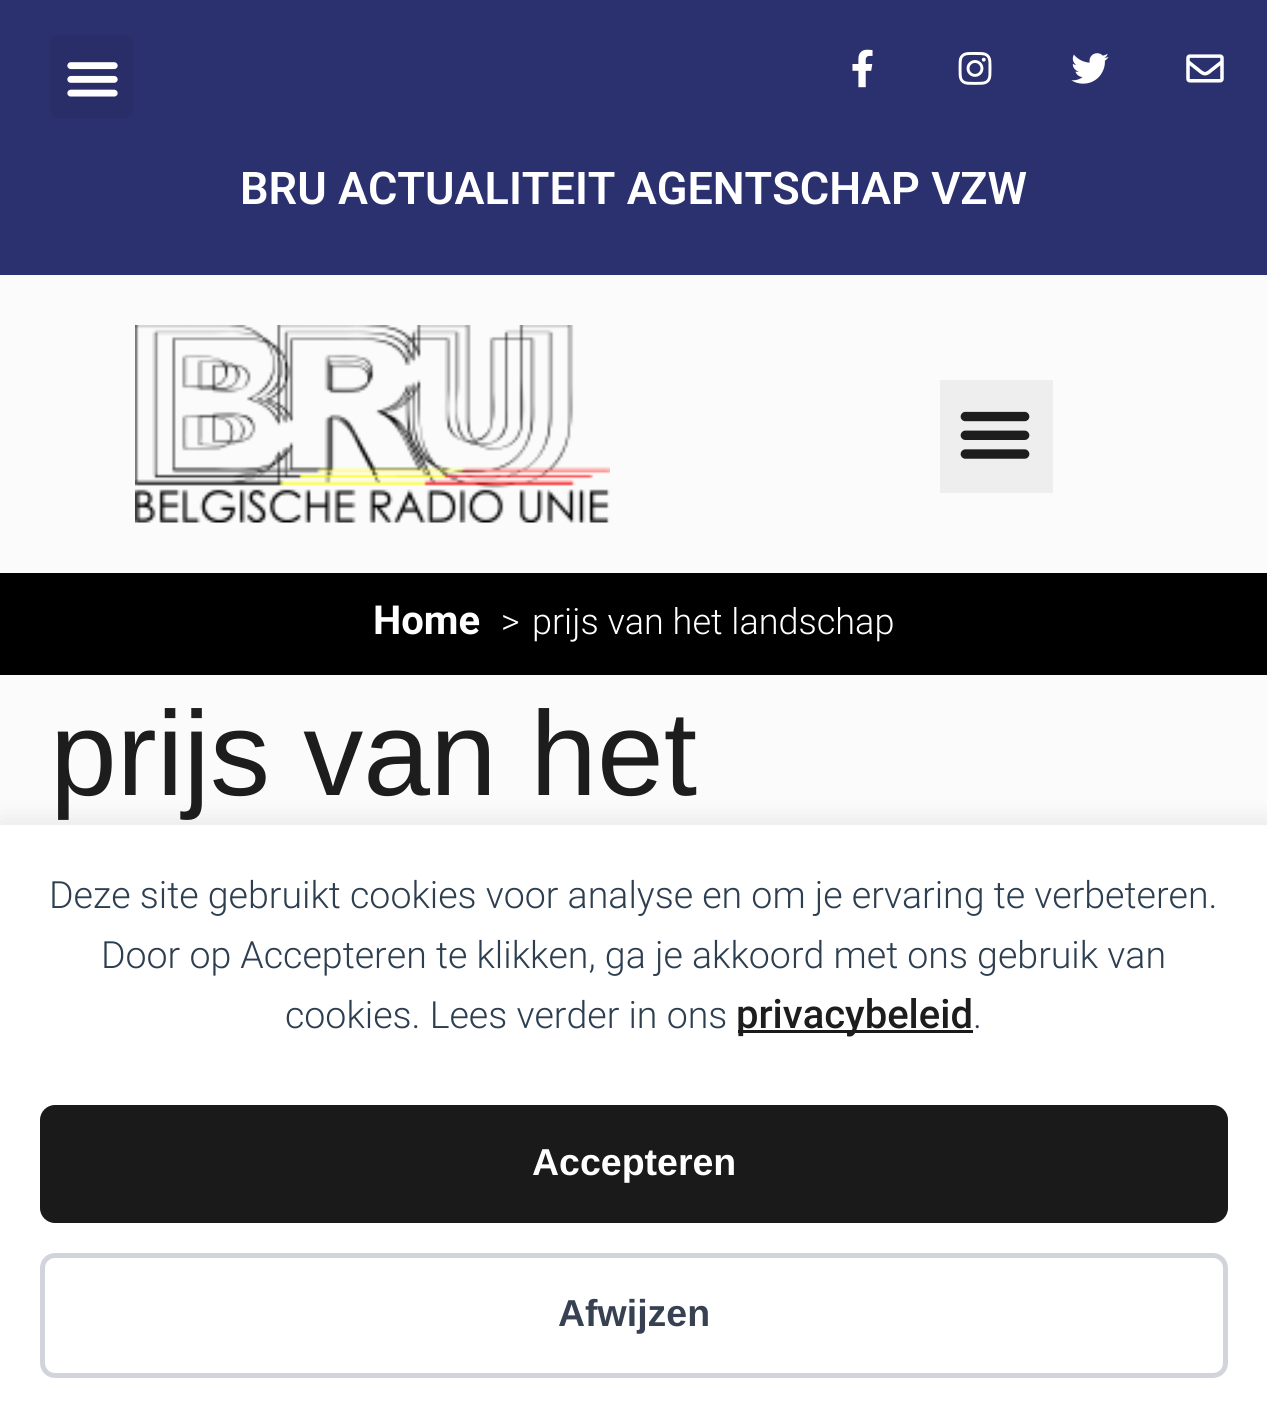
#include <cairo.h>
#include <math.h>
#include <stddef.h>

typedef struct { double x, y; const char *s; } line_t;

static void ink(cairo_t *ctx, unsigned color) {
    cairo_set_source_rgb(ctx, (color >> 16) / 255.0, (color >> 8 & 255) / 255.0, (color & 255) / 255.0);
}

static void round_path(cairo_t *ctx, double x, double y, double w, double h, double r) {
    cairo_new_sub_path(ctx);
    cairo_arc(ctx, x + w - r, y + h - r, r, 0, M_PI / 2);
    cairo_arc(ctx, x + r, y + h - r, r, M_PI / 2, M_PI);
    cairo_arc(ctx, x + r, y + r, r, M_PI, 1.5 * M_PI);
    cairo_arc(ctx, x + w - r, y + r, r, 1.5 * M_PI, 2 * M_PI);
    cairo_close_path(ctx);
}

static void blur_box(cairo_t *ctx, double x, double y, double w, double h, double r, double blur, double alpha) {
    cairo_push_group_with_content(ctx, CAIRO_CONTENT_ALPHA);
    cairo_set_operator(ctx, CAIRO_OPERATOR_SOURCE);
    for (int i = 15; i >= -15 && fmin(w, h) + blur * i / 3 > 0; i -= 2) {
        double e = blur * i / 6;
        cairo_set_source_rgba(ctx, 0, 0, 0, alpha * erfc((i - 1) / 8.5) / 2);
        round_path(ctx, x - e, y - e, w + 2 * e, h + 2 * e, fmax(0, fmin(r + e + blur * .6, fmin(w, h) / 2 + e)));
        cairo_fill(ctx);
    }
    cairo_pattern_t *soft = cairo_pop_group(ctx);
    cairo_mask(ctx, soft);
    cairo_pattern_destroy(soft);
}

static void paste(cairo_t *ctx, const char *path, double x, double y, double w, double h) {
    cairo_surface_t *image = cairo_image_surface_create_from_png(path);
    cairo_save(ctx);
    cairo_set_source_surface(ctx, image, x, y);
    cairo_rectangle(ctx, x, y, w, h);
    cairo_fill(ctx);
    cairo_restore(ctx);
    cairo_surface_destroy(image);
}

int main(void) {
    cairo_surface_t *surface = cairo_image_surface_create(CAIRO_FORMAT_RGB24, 1267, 1416);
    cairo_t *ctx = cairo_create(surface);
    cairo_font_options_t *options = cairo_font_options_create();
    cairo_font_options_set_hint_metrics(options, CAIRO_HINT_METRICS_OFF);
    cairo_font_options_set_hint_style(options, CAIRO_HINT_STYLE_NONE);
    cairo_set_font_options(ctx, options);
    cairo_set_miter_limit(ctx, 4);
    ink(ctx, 0xFBFBFB);
    cairo_paint(ctx);
    ink(ctx, 0x2B306F);
    cairo_rectangle(ctx, 0, 0, 1267, 275);
    cairo_fill(ctx);
    ink(ctx, 0x292E69);
    round_path(ctx, 50, 35, 83, 83, 8);
    cairo_fill(ctx);
    paste(ctx, "media/1.png", 67, 62, 51, 35);
    paste(ctx, "media/2.png", 852, 49, 21, 39);
    paste(ctx, "media/3.png", 958, 51, 34, 34);
    paste(ctx, "media/4.png", 1071, 53, 38, 31);
    paste(ctx, "media/5.png", 1186, 54, 38, 29);
    cairo_select_font_face(ctx, "Roboto SemiBold", CAIRO_FONT_SLANT_NORMAL, CAIRO_FONT_WEIGHT_NORMAL);
    cairo_set_font_size(ctx, 45);
    ink(ctx, 0xFFFFFF);
    cairo_move_to(ctx, 240, 204);
    cairo_show_text(ctx, "BRU ACTUALITEIT AGENTSCHAP VZW");
    paste(ctx, "media/6.png", 135, 325, 475, 198);
    ink(ctx, 0xEEEEEE);
    cairo_rectangle(ctx, 940, 380, 113, 113);
    cairo_fill(ctx);
    paste(ctx, "media/7.png", 960, 411, 70, 48);
    ink(ctx, 0x000000);
    cairo_rectangle(ctx, 0, 573, 1267, 102);
    cairo_fill(ctx);
    cairo_select_font_face(ctx, "Roboto", CAIRO_FONT_SLANT_NORMAL, CAIRO_FONT_WEIGHT_BOLD);
    cairo_set_font_size(ctx, 40);
    ink(ctx, 0xFFFFFF);
    cairo_move_to(ctx, 373, 634);
    cairo_show_text(ctx, "Home");
    cairo_select_font_face(ctx, "Roboto Light", CAIRO_FONT_SLANT_NORMAL, CAIRO_FONT_WEIGHT_NORMAL);
    cairo_set_font_size(ctx, 36);
    cairo_move_to(ctx, 501, 634);
    cairo_show_text(ctx, ">");
    cairo_move_to(ctx, 532, 634);
    cairo_show_text(ctx, "prijs van het landschap");
    cairo_select_font_face(ctx, "Liberation Sans", CAIRO_FONT_SLANT_NORMAL, CAIRO_FONT_WEIGHT_NORMAL);
    cairo_set_font_size(ctx, 120);
    ink(ctx, 0x1D1D1D);
    cairo_move_to(ctx, 50, 795);
    cairo_show_text(ctx, "prijs van het");
    ink(ctx, 0x000000);
    blur_box(ctx, 0, 820, 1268, 593, 0, 12.5, 0.08);
    ink(ctx, 0xFFFFFF);
    cairo_rectangle(ctx, 0, 825, 1267, 591);
    cairo_fill(ctx);
    cairo_select_font_face(ctx, "Roboto Light", CAIRO_FONT_SLANT_NORMAL, CAIRO_FONT_WEIGHT_NORMAL);
    cairo_set_font_size(ctx, 37.5);
    ink(ctx, 0x2C3E50);
    {
        static const line_t items[] = {
            {49, 908, "Deze site gebruikt cookies voor analyse en om je ervaring te verbeteren."},
            {101, 968, "Door op Accepteren te klikken, ga je akkoord met ons gebruik van"},
            {285, 1028, "cookies. Lees verder in ons"},
        };
        for (size_t i = 0; i < sizeof items / sizeof *items; i++) {
            cairo_move_to(ctx, items[i].x, items[i].y);
            cairo_show_text(ctx, items[i].s);
        }
    }
    ink(ctx, 0x1A1A1A);
    cairo_rectangle(ctx, 738, 1030, 235, 3);
    cairo_fill(ctx);
    cairo_select_font_face(ctx, "Roboto Medium", CAIRO_FONT_SLANT_NORMAL, CAIRO_FONT_WEIGHT_NORMAL);
    cairo_set_font_size(ctx, 40);
    ink(ctx, 0x1D1D1D);
    cairo_move_to(ctx, 736, 1028);
    cairo_show_text(ctx, "privacybeleid");
    cairo_select_font_face(ctx, "Roboto Light", CAIRO_FONT_SLANT_NORMAL, CAIRO_FONT_WEIGHT_NORMAL);
    cairo_set_font_size(ctx, 37.5);
    ink(ctx, 0x2C3E50);
    cairo_move_to(ctx, 973, 1028);
    cairo_show_text(ctx, ".");
    ink(ctx, 0x1A1A1A);
    round_path(ctx, 40, 1105, 1188, 118, 15);
    cairo_fill(ctx);
    cairo_select_font_face(ctx, "Liberation Sans", CAIRO_FONT_SLANT_NORMAL, CAIRO_FONT_WEIGHT_BOLD);
    ink(ctx, 0xFFFFFF);
    cairo_move_to(ctx, 532, 1175);
    cairo_show_text(ctx, "Accepteren");
    round_path(ctx, 42.5, 1255.5, 1183, 120, 12.5);
    ink(ctx, 0xD1D5DB);
    cairo_set_line_width(ctx, 5);
    cairo_stroke(ctx);
    ink(ctx, 0x374151);
    cairo_move_to(ctx, 558, 1326);
    cairo_show_text(ctx, "Afwijzen");
    cairo_surface_write_to_png(surface, "image.png");
    cairo_font_options_destroy(options);
    cairo_destroy(ctx);
    cairo_surface_destroy(surface);
    return 0;
}
